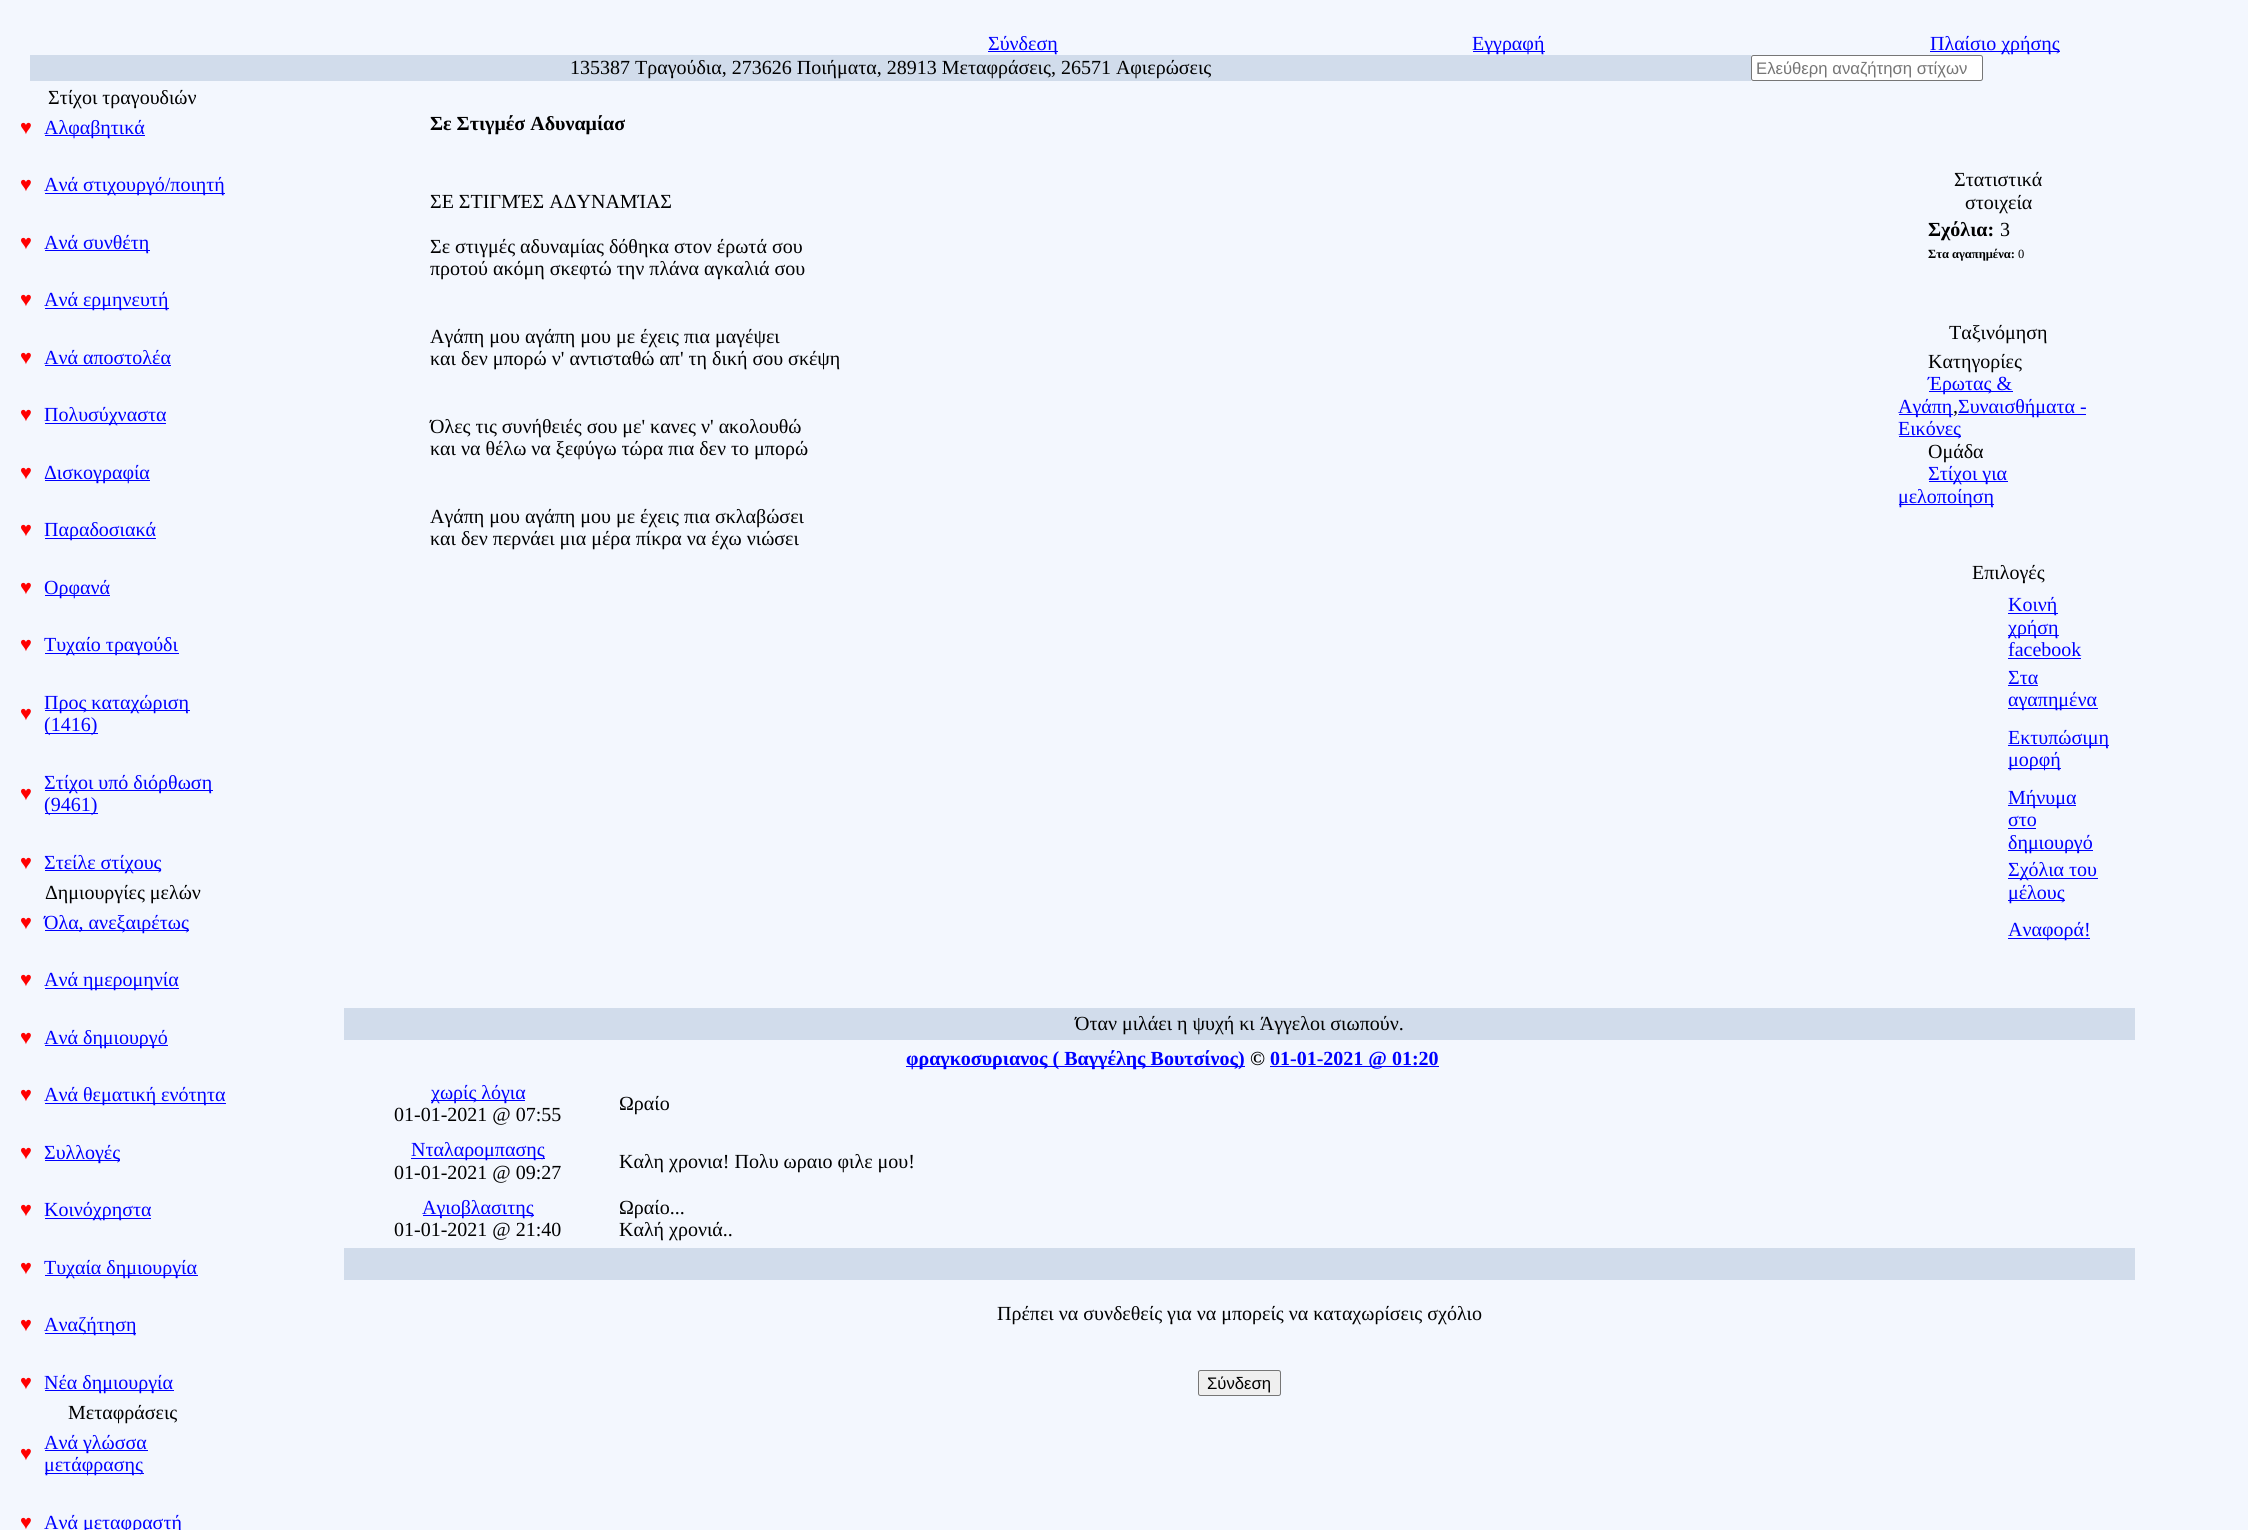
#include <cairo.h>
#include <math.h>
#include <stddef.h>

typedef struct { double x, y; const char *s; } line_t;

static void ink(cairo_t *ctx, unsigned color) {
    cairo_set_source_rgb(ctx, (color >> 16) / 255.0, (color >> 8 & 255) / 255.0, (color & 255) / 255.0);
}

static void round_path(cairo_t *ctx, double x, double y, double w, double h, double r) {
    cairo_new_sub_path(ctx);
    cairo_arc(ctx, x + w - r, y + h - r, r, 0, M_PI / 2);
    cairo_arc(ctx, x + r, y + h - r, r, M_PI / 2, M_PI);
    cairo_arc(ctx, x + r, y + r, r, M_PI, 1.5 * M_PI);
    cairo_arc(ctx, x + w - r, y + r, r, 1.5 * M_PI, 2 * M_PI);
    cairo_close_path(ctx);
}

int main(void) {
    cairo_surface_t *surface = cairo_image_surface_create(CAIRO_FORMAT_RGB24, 2248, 1530);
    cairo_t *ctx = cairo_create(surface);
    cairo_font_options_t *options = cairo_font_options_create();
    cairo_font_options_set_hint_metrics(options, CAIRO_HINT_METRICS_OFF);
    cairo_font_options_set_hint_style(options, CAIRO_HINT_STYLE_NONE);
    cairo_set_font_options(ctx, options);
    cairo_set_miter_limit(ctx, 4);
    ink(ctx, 0xF3F7FE);
    cairo_paint(ctx);
    ink(ctx, 0x0000FF);
    cairo_rectangle(ctx, 988, 51, 70, 1);
    cairo_fill(ctx);
    cairo_select_font_face(ctx, "Liberation Serif", CAIRO_FONT_SLANT_NORMAL, CAIRO_FONT_WEIGHT_NORMAL);
    cairo_set_font_size(ctx, 20);
    cairo_move_to(ctx, 988, 50);
    cairo_show_text(ctx, "Σύνδεση");
    cairo_rectangle(ctx, 1473, 51, 72, 1);
    cairo_fill(ctx);
    cairo_move_to(ctx, 1472, 50);
    cairo_show_text(ctx, "Εγγραφή");
    cairo_rectangle(ctx, 1930, 51, 130, 1);
    cairo_fill(ctx);
    cairo_move_to(ctx, 1930, 50);
    cairo_show_text(ctx, "Πλαίσιο χρήσης");
    ink(ctx, 0xD1DCEB);
    cairo_rectangle(ctx, 30, 55, 1721, 26);
    cairo_fill(ctx);
    ink(ctx, 0x000000);
    cairo_move_to(ctx, 570, 74);
    cairo_show_text(ctx, "135387 Τραγούδια, 273626 Ποιήματα, 28913 Μεταφράσεις, 26571 Αφιερώσεις");
    ink(ctx, 0xFFFFFF);
    round_path(ctx, 1751.5, 55.5, 231, 25, 2);
    cairo_fill_preserve(ctx);
    ink(ctx, 0x767676);
    cairo_set_line_width(ctx, 1);
    cairo_stroke(ctx);
    cairo_select_font_face(ctx, "Liberation Sans", CAIRO_FONT_SLANT_NORMAL, CAIRO_FONT_WEIGHT_NORMAL);
    cairo_set_font_size(ctx, 16.7);
    ink(ctx, 0x757575);
    cairo_move_to(ctx, 1756, 74);
    cairo_show_text(ctx, "Ελεύθερη αναζήτηση στίχων");
    cairo_select_font_face(ctx, "Liberation Serif", CAIRO_FONT_SLANT_NORMAL, CAIRO_FONT_WEIGHT_NORMAL);
    cairo_set_font_size(ctx, 20);
    ink(ctx, 0x000000);
    cairo_move_to(ctx, 48, 104);
    cairo_show_text(ctx, "Στίχοι τραγουδιών");
    cairo_select_font_face(ctx, "Liberation Serif", CAIRO_FONT_SLANT_NORMAL, CAIRO_FONT_WEIGHT_BOLD);
    ink(ctx, 0xFF0000);
    cairo_move_to(ctx, 20, 134);
    cairo_show_text(ctx, "♥");
    ink(ctx, 0x0000FF);
    cairo_rectangle(ctx, 45, 135, 100, 1);
    cairo_fill(ctx);
    cairo_select_font_face(ctx, "Liberation Serif", CAIRO_FONT_SLANT_NORMAL, CAIRO_FONT_WEIGHT_NORMAL);
    cairo_move_to(ctx, 44, 134);
    cairo_show_text(ctx, "Αλφαβητικά");
    cairo_select_font_face(ctx, "Liberation Serif", CAIRO_FONT_SLANT_NORMAL, CAIRO_FONT_WEIGHT_BOLD);
    ink(ctx, 0xFF0000);
    cairo_move_to(ctx, 20, 191);
    cairo_show_text(ctx, "♥");
    ink(ctx, 0x0000FF);
    cairo_rectangle(ctx, 45, 193, 180, 1);
    cairo_fill(ctx);
    cairo_select_font_face(ctx, "Liberation Serif", CAIRO_FONT_SLANT_NORMAL, CAIRO_FONT_WEIGHT_NORMAL);
    cairo_move_to(ctx, 44, 191);
    cairo_show_text(ctx, "Ανά στιχουργό/ποιητή");
    cairo_select_font_face(ctx, "Liberation Serif", CAIRO_FONT_SLANT_NORMAL, CAIRO_FONT_WEIGHT_BOLD);
    ink(ctx, 0xFF0000);
    cairo_move_to(ctx, 20, 249);
    cairo_show_text(ctx, "♥");
    ink(ctx, 0x0000FF);
    cairo_rectangle(ctx, 45, 250, 105, 1);
    cairo_fill(ctx);
    cairo_select_font_face(ctx, "Liberation Serif", CAIRO_FONT_SLANT_NORMAL, CAIRO_FONT_WEIGHT_NORMAL);
    cairo_move_to(ctx, 44, 249);
    cairo_show_text(ctx, "Ανά συνθέτη");
    cairo_select_font_face(ctx, "Liberation Serif", CAIRO_FONT_SLANT_NORMAL, CAIRO_FONT_WEIGHT_BOLD);
    ink(ctx, 0xFF0000);
    cairo_move_to(ctx, 20, 306);
    cairo_show_text(ctx, "♥");
    ink(ctx, 0x0000FF);
    cairo_rectangle(ctx, 45, 308, 124, 1);
    cairo_fill(ctx);
    cairo_select_font_face(ctx, "Liberation Serif", CAIRO_FONT_SLANT_NORMAL, CAIRO_FONT_WEIGHT_NORMAL);
    cairo_move_to(ctx, 44, 306);
    cairo_show_text(ctx, "Ανά ερμηνευτή");
    cairo_select_font_face(ctx, "Liberation Serif", CAIRO_FONT_SLANT_NORMAL, CAIRO_FONT_WEIGHT_BOLD);
    ink(ctx, 0xFF0000);
    cairo_move_to(ctx, 20, 364);
    cairo_show_text(ctx, "♥");
    cairo_select_font_face(ctx, "Liberation Serif", CAIRO_FONT_SLANT_NORMAL, CAIRO_FONT_WEIGHT_NORMAL);
    ink(ctx, 0x0000FF);
    cairo_move_to(ctx, 44, 364);
    cairo_show_text(ctx, "Ανά αποστολέα");
    cairo_rectangle(ctx, 45, 365, 126, 1);
    cairo_fill(ctx);
    cairo_select_font_face(ctx, "Liberation Serif", CAIRO_FONT_SLANT_NORMAL, CAIRO_FONT_WEIGHT_BOLD);
    ink(ctx, 0xFF0000);
    cairo_move_to(ctx, 20, 421);
    cairo_show_text(ctx, "♥");
    ink(ctx, 0x0000FF);
    cairo_rectangle(ctx, 45, 423, 121, 1);
    cairo_fill(ctx);
    cairo_select_font_face(ctx, "Liberation Serif", CAIRO_FONT_SLANT_NORMAL, CAIRO_FONT_WEIGHT_NORMAL);
    cairo_move_to(ctx, 44, 421);
    cairo_show_text(ctx, "Πολυσύχναστα");
    cairo_select_font_face(ctx, "Liberation Serif", CAIRO_FONT_SLANT_NORMAL, CAIRO_FONT_WEIGHT_BOLD);
    ink(ctx, 0xFF0000);
    cairo_move_to(ctx, 20, 479);
    cairo_show_text(ctx, "♥");
    ink(ctx, 0x0000FF);
    cairo_rectangle(ctx, 45, 480, 105, 1);
    cairo_fill(ctx);
    cairo_select_font_face(ctx, "Liberation Serif", CAIRO_FONT_SLANT_NORMAL, CAIRO_FONT_WEIGHT_NORMAL);
    cairo_move_to(ctx, 44, 479);
    cairo_show_text(ctx, "Δισκογραφία");
    cairo_select_font_face(ctx, "Liberation Serif", CAIRO_FONT_SLANT_NORMAL, CAIRO_FONT_WEIGHT_BOLD);
    ink(ctx, 0xFF0000);
    cairo_move_to(ctx, 20, 536);
    cairo_show_text(ctx, "♥");
    ink(ctx, 0x0000FF);
    cairo_rectangle(ctx, 45, 538, 111, 1);
    cairo_fill(ctx);
    cairo_select_font_face(ctx, "Liberation Serif", CAIRO_FONT_SLANT_NORMAL, CAIRO_FONT_WEIGHT_NORMAL);
    cairo_move_to(ctx, 44, 536);
    cairo_show_text(ctx, "Παραδοσιακά");
    cairo_select_font_face(ctx, "Liberation Serif", CAIRO_FONT_SLANT_NORMAL, CAIRO_FONT_WEIGHT_BOLD);
    ink(ctx, 0xFF0000);
    cairo_move_to(ctx, 20, 594);
    cairo_show_text(ctx, "♥");
    ink(ctx, 0x0000FF);
    cairo_rectangle(ctx, 45, 595, 65, 1);
    cairo_fill(ctx);
    cairo_select_font_face(ctx, "Liberation Serif", CAIRO_FONT_SLANT_NORMAL, CAIRO_FONT_WEIGHT_NORMAL);
    cairo_move_to(ctx, 44, 594);
    cairo_show_text(ctx, "Ορφανά");
    cairo_select_font_face(ctx, "Liberation Serif", CAIRO_FONT_SLANT_NORMAL, CAIRO_FONT_WEIGHT_BOLD);
    ink(ctx, 0xFF0000);
    cairo_move_to(ctx, 20, 651);
    cairo_show_text(ctx, "♥");
    ink(ctx, 0x0000FF);
    cairo_rectangle(ctx, 45, 653, 134, 1);
    cairo_fill(ctx);
    cairo_select_font_face(ctx, "Liberation Serif", CAIRO_FONT_SLANT_NORMAL, CAIRO_FONT_WEIGHT_NORMAL);
    cairo_move_to(ctx, 44, 651);
    cairo_show_text(ctx, "Τυχαίο τραγούδι");
    cairo_select_font_face(ctx, "Liberation Serif", CAIRO_FONT_SLANT_NORMAL, CAIRO_FONT_WEIGHT_BOLD);
    ink(ctx, 0xFF0000);
    cairo_move_to(ctx, 20, 720);
    cairo_show_text(ctx, "♥");
    ink(ctx, 0x0000FF);
    cairo_rectangle(ctx, 45, 710, 145, 1);
    cairo_fill(ctx);
    cairo_select_font_face(ctx, "Liberation Serif", CAIRO_FONT_SLANT_NORMAL, CAIRO_FONT_WEIGHT_NORMAL);
    cairo_move_to(ctx, 44, 709);
    cairo_show_text(ctx, "Προς καταχώριση");
    cairo_rectangle(ctx, 45, 733, 53, 1);
    cairo_fill(ctx);
    cairo_move_to(ctx, 44, 731);
    cairo_show_text(ctx, "(1416)");
    cairo_select_font_face(ctx, "Liberation Serif", CAIRO_FONT_SLANT_NORMAL, CAIRO_FONT_WEIGHT_BOLD);
    ink(ctx, 0xFF0000);
    cairo_move_to(ctx, 20, 800);
    cairo_show_text(ctx, "♥");
    ink(ctx, 0x0000FF);
    cairo_rectangle(ctx, 45, 790, 168, 1);
    cairo_fill(ctx);
    cairo_select_font_face(ctx, "Liberation Serif", CAIRO_FONT_SLANT_NORMAL, CAIRO_FONT_WEIGHT_NORMAL);
    cairo_move_to(ctx, 44, 789);
    cairo_show_text(ctx, "Στίχοι υπό διόρθωση");
    cairo_rectangle(ctx, 45, 813, 53, 1);
    cairo_fill(ctx);
    cairo_move_to(ctx, 44, 811);
    cairo_show_text(ctx, "(9461)");
    cairo_select_font_face(ctx, "Liberation Serif", CAIRO_FONT_SLANT_NORMAL, CAIRO_FONT_WEIGHT_BOLD);
    ink(ctx, 0xFF0000);
    cairo_move_to(ctx, 20, 869);
    cairo_show_text(ctx, "♥");
    ink(ctx, 0x0000FF);
    cairo_rectangle(ctx, 45, 870, 116, 1);
    cairo_fill(ctx);
    cairo_select_font_face(ctx, "Liberation Serif", CAIRO_FONT_SLANT_NORMAL, CAIRO_FONT_WEIGHT_NORMAL);
    cairo_move_to(ctx, 44, 869);
    cairo_show_text(ctx, "Στείλε στίχους");
    ink(ctx, 0x000000);
    cairo_move_to(ctx, 45, 899);
    cairo_show_text(ctx, "Δημιουργίες μελών");
    cairo_select_font_face(ctx, "Liberation Serif", CAIRO_FONT_SLANT_NORMAL, CAIRO_FONT_WEIGHT_BOLD);
    ink(ctx, 0xFF0000);
    cairo_move_to(ctx, 20, 929);
    cairo_show_text(ctx, "♥");
    ink(ctx, 0x0000FF);
    cairo_rectangle(ctx, 45, 930, 144, 1);
    cairo_fill(ctx);
    cairo_select_font_face(ctx, "Liberation Serif", CAIRO_FONT_SLANT_NORMAL, CAIRO_FONT_WEIGHT_NORMAL);
    cairo_move_to(ctx, 44, 929);
    cairo_show_text(ctx, "Όλα, ανεξαιρέτως");
    cairo_select_font_face(ctx, "Liberation Serif", CAIRO_FONT_SLANT_NORMAL, CAIRO_FONT_WEIGHT_BOLD);
    ink(ctx, 0xFF0000);
    cairo_move_to(ctx, 20, 986);
    cairo_show_text(ctx, "♥");
    ink(ctx, 0x0000FF);
    cairo_rectangle(ctx, 45, 988, 134, 1);
    cairo_fill(ctx);
    cairo_select_font_face(ctx, "Liberation Serif", CAIRO_FONT_SLANT_NORMAL, CAIRO_FONT_WEIGHT_NORMAL);
    cairo_move_to(ctx, 44, 986);
    cairo_show_text(ctx, "Ανά ημερομηνία");
    cairo_select_font_face(ctx, "Liberation Serif", CAIRO_FONT_SLANT_NORMAL, CAIRO_FONT_WEIGHT_BOLD);
    ink(ctx, 0xFF0000);
    cairo_move_to(ctx, 20, 1044);
    cairo_show_text(ctx, "♥");
    ink(ctx, 0x0000FF);
    cairo_rectangle(ctx, 45, 1045, 123, 1);
    cairo_fill(ctx);
    cairo_select_font_face(ctx, "Liberation Serif", CAIRO_FONT_SLANT_NORMAL, CAIRO_FONT_WEIGHT_NORMAL);
    cairo_move_to(ctx, 44, 1044);
    cairo_show_text(ctx, "Ανά δημιουργό");
    cairo_select_font_face(ctx, "Liberation Serif", CAIRO_FONT_SLANT_NORMAL, CAIRO_FONT_WEIGHT_BOLD);
    ink(ctx, 0xFF0000);
    cairo_move_to(ctx, 20, 1101);
    cairo_show_text(ctx, "♥");
    ink(ctx, 0x0000FF);
    cairo_rectangle(ctx, 45, 1103, 181, 1);
    cairo_fill(ctx);
    cairo_select_font_face(ctx, "Liberation Serif", CAIRO_FONT_SLANT_NORMAL, CAIRO_FONT_WEIGHT_NORMAL);
    cairo_move_to(ctx, 44, 1101);
    cairo_show_text(ctx, "Ανά θεματική ενότητα");
    cairo_select_font_face(ctx, "Liberation Serif", CAIRO_FONT_SLANT_NORMAL, CAIRO_FONT_WEIGHT_BOLD);
    ink(ctx, 0xFF0000);
    cairo_move_to(ctx, 20, 1159);
    cairo_show_text(ctx, "♥");
    ink(ctx, 0x0000FF);
    cairo_rectangle(ctx, 45, 1160, 75, 1);
    cairo_fill(ctx);
    cairo_select_font_face(ctx, "Liberation Serif", CAIRO_FONT_SLANT_NORMAL, CAIRO_FONT_WEIGHT_NORMAL);
    cairo_move_to(ctx, 44, 1159);
    cairo_show_text(ctx, "Συλλογές");
    cairo_select_font_face(ctx, "Liberation Serif", CAIRO_FONT_SLANT_NORMAL, CAIRO_FONT_WEIGHT_BOLD);
    ink(ctx, 0xFF0000);
    cairo_move_to(ctx, 20, 1216);
    cairo_show_text(ctx, "♥");
    ink(ctx, 0x0000FF);
    cairo_rectangle(ctx, 45, 1218, 106, 1);
    cairo_fill(ctx);
    cairo_select_font_face(ctx, "Liberation Serif", CAIRO_FONT_SLANT_NORMAL, CAIRO_FONT_WEIGHT_NORMAL);
    cairo_move_to(ctx, 44, 1216);
    cairo_show_text(ctx, "Κοινόχρηστα");
    cairo_select_font_face(ctx, "Liberation Serif", CAIRO_FONT_SLANT_NORMAL, CAIRO_FONT_WEIGHT_BOLD);
    ink(ctx, 0xFF0000);
    cairo_move_to(ctx, 20, 1274);
    cairo_show_text(ctx, "♥");
    ink(ctx, 0x0000FF);
    cairo_rectangle(ctx, 45, 1275, 153, 1);
    cairo_fill(ctx);
    cairo_select_font_face(ctx, "Liberation Serif", CAIRO_FONT_SLANT_NORMAL, CAIRO_FONT_WEIGHT_NORMAL);
    cairo_move_to(ctx, 44, 1274);
    cairo_show_text(ctx, "Τυχαία δημιουργία");
    cairo_select_font_face(ctx, "Liberation Serif", CAIRO_FONT_SLANT_NORMAL, CAIRO_FONT_WEIGHT_BOLD);
    ink(ctx, 0xFF0000);
    cairo_move_to(ctx, 20, 1331);
    cairo_show_text(ctx, "♥");
    ink(ctx, 0x0000FF);
    cairo_rectangle(ctx, 45, 1333, 91, 1);
    cairo_fill(ctx);
    cairo_select_font_face(ctx, "Liberation Serif", CAIRO_FONT_SLANT_NORMAL, CAIRO_FONT_WEIGHT_NORMAL);
    cairo_move_to(ctx, 44, 1331);
    cairo_show_text(ctx, "Αναζήτηση");
    cairo_select_font_face(ctx, "Liberation Serif", CAIRO_FONT_SLANT_NORMAL, CAIRO_FONT_WEIGHT_BOLD);
    ink(ctx, 0xFF0000);
    cairo_move_to(ctx, 20, 1389);
    cairo_show_text(ctx, "♥");
    ink(ctx, 0x0000FF);
    cairo_rectangle(ctx, 45, 1390, 129, 1);
    cairo_fill(ctx);
    cairo_select_font_face(ctx, "Liberation Serif", CAIRO_FONT_SLANT_NORMAL, CAIRO_FONT_WEIGHT_NORMAL);
    cairo_move_to(ctx, 44, 1389);
    cairo_show_text(ctx, "Νέα δημιουργία");
    ink(ctx, 0x000000);
    cairo_move_to(ctx, 68, 1419);
    cairo_show_text(ctx, "Μεταφράσεις");
    cairo_select_font_face(ctx, "Liberation Serif", CAIRO_FONT_SLANT_NORMAL, CAIRO_FONT_WEIGHT_BOLD);
    ink(ctx, 0xFF0000);
    cairo_move_to(ctx, 20, 1460);
    cairo_show_text(ctx, "♥");
    ink(ctx, 0x0000FF);
    cairo_rectangle(ctx, 45, 1450, 103, 1);
    cairo_fill(ctx);
    cairo_select_font_face(ctx, "Liberation Serif", CAIRO_FONT_SLANT_NORMAL, CAIRO_FONT_WEIGHT_NORMAL);
    cairo_move_to(ctx, 44, 1449);
    cairo_show_text(ctx, "Ανά γλώσσα");
    cairo_rectangle(ctx, 45, 1473, 99, 1);
    cairo_fill(ctx);
    cairo_move_to(ctx, 44, 1471);
    cairo_show_text(ctx, "μετάφρασης");
    cairo_select_font_face(ctx, "Liberation Serif", CAIRO_FONT_SLANT_NORMAL, CAIRO_FONT_WEIGHT_BOLD);
    ink(ctx, 0xFF0000);
    cairo_move_to(ctx, 20, 1529);
    cairo_show_text(ctx, "♥");
    cairo_select_font_face(ctx, "Liberation Serif", CAIRO_FONT_SLANT_NORMAL, CAIRO_FONT_WEIGHT_NORMAL);
    ink(ctx, 0x0000FF);
    cairo_move_to(ctx, 44, 1529);
    cairo_show_text(ctx, "Ανά μεταφραστή");
    cairo_select_font_face(ctx, "Liberation Serif", CAIRO_FONT_SLANT_NORMAL, CAIRO_FONT_WEIGHT_BOLD);
    ink(ctx, 0x000000);
    cairo_move_to(ctx, 430, 130);
    cairo_show_text(ctx, "Σε Στιγμέσ Αδυναμίασ");
    cairo_select_font_face(ctx, "Liberation Serif", CAIRO_FONT_SLANT_NORMAL, CAIRO_FONT_WEIGHT_NORMAL);
    {
        static const line_t items[] = {
            {430, 208, "ΣΕ ΣΤΙΓΜΈΣ ΑΔΥΝΑΜΊΑΣ"},
            {430, 253, "Σε στιγμές αδυναμίας δόθηκα στον έρωτά σου"},
            {430, 275, "προτού ακόμη σκεφτώ την πλάνα αγκαλιά σου"},
            {430, 343, "Αγάπη μου αγάπη μου με έχεις πια μαγέψει"},
            {430, 365, "και δεν μπορώ ν' αντισταθώ απ' τη δική σου σκέψη"},
            {430, 433, "Όλες τις συνήθειές σου με' κανες ν' ακολουθώ"},
            {430, 455, "και να θέλω να ξεφύγω τώρα πια δεν το μπορώ"},
            {430, 523, "Αγάπη μου αγάπη μου με έχεις πια σκλαβώσει"},
            {430, 545, "και δεν περνάει μια μέρα πίκρα να έχω νιώσει"},
            {1954, 186, "Στατιστικά"},
            {1965, 209, "στοιχεία"},
        };
        for (size_t i = 0; i < sizeof items / sizeof *items; i++) {
            cairo_move_to(ctx, items[i].x, items[i].y);
            cairo_show_text(ctx, items[i].s);
        }
    }
    cairo_select_font_face(ctx, "Liberation Serif", CAIRO_FONT_SLANT_NORMAL, CAIRO_FONT_WEIGHT_BOLD);
    cairo_move_to(ctx, 1928, 236);
    cairo_show_text(ctx, "Σχόλια:");
    cairo_select_font_face(ctx, "Liberation Serif", CAIRO_FONT_SLANT_NORMAL, CAIRO_FONT_WEIGHT_NORMAL);
    cairo_move_to(ctx, 2000, 236);
    cairo_show_text(ctx, "3");
    cairo_select_font_face(ctx, "Liberation Serif", CAIRO_FONT_SLANT_NORMAL, CAIRO_FONT_WEIGHT_BOLD);
    cairo_set_font_size(ctx, 12.5);
    cairo_move_to(ctx, 1928, 258);
    cairo_show_text(ctx, "Στα αγαπημένα:");
    cairo_select_font_face(ctx, "Liberation Serif", CAIRO_FONT_SLANT_NORMAL, CAIRO_FONT_WEIGHT_NORMAL);
    cairo_move_to(ctx, 2018, 258);
    cairo_show_text(ctx, "0");
    cairo_set_font_size(ctx, 20);
    cairo_move_to(ctx, 1949, 339);
    cairo_show_text(ctx, "Ταξινόμηση");
    cairo_move_to(ctx, 1928, 368);
    cairo_show_text(ctx, "Κατηγορίες");
    ink(ctx, 0x0000FF);
    cairo_rectangle(ctx, 1929, 391, 84, 1);
    cairo_fill(ctx);
    cairo_move_to(ctx, 1928, 390);
    cairo_show_text(ctx, "Έρωτας &");
    cairo_rectangle(ctx, 1899, 414, 54, 1);
    cairo_fill(ctx);
    cairo_move_to(ctx, 1898, 413);
    cairo_show_text(ctx, "Αγάπη");
    ink(ctx, 0x000000);
    cairo_move_to(ctx, 1953, 413);
    cairo_show_text(ctx, ",");
    ink(ctx, 0x0000FF);
    cairo_rectangle(ctx, 1958, 414, 128, 1);
    cairo_fill(ctx);
    cairo_move_to(ctx, 1958, 413);
    cairo_show_text(ctx, "Συναισθήματα -");
    cairo_rectangle(ctx, 1899, 436, 62, 1);
    cairo_fill(ctx);
    cairo_move_to(ctx, 1898, 435);
    cairo_show_text(ctx, "Εικόνες");
    ink(ctx, 0x000000);
    cairo_move_to(ctx, 1928, 458);
    cairo_show_text(ctx, "Ομάδα");
    ink(ctx, 0x0000FF);
    cairo_rectangle(ctx, 1929, 481, 79, 1);
    cairo_fill(ctx);
    cairo_move_to(ctx, 1928, 480);
    cairo_show_text(ctx, "Στίχοι για");
    cairo_rectangle(ctx, 1899, 504, 95, 1);
    cairo_fill(ctx);
    cairo_move_to(ctx, 1898, 503);
    cairo_show_text(ctx, "μελοποίηση");
    ink(ctx, 0x000000);
    cairo_move_to(ctx, 1972, 579);
    cairo_show_text(ctx, "Επιλογές");
    ink(ctx, 0x0000FF);
    cairo_rectangle(ctx, 2008, 613, 50, 1);
    cairo_fill(ctx);
    cairo_move_to(ctx, 2008, 611);
    cairo_show_text(ctx, "Κοινή");
    cairo_rectangle(ctx, 2008, 635, 51, 1);
    cairo_fill(ctx);
    cairo_move_to(ctx, 2008, 634);
    cairo_show_text(ctx, "χρήση");
    cairo_move_to(ctx, 2008, 656);
    cairo_show_text(ctx, "facebook");
    cairo_rectangle(ctx, 2008, 658, 73, 1);
    cairo_fill(ctx);
    cairo_move_to(ctx, 2008, 684);
    cairo_show_text(ctx, "Στα");
    cairo_rectangle(ctx, 2008, 685, 30, 1);
    cairo_fill(ctx);
    cairo_rectangle(ctx, 2008, 708, 90, 1);
    cairo_fill(ctx);
    cairo_move_to(ctx, 2008, 706);
    cairo_show_text(ctx, "αγαπημένα");
    cairo_rectangle(ctx, 2008, 745, 101, 1);
    cairo_fill(ctx);
    cairo_move_to(ctx, 2008, 744);
    cairo_show_text(ctx, "Εκτυπώσιμη");
    cairo_rectangle(ctx, 2008, 768, 53, 1);
    cairo_fill(ctx);
    cairo_move_to(ctx, 2008, 766);
    cairo_show_text(ctx, "μορφή");
    cairo_rectangle(ctx, 2008, 805, 68, 1);
    cairo_fill(ctx);
    cairo_move_to(ctx, 2008, 804);
    cairo_show_text(ctx, "Μήνυμα");
    cairo_move_to(ctx, 2008, 826);
    cairo_show_text(ctx, "στο");
    cairo_rectangle(ctx, 2008, 828, 28, 1);
    cairo_fill(ctx);
    cairo_rectangle(ctx, 2008, 850, 85, 1);
    cairo_fill(ctx);
    cairo_move_to(ctx, 2008, 849);
    cairo_show_text(ctx, "δημιουργό");
    cairo_rectangle(ctx, 2008, 878, 90, 1);
    cairo_fill(ctx);
    cairo_move_to(ctx, 2008, 876);
    cairo_show_text(ctx, "Σχόλια του");
    cairo_rectangle(ctx, 2008, 900, 57, 1);
    cairo_fill(ctx);
    cairo_move_to(ctx, 2008, 899);
    cairo_show_text(ctx, "μέλους");
    cairo_rectangle(ctx, 2008, 938, 82, 1);
    cairo_fill(ctx);
    cairo_move_to(ctx, 2008, 936);
    cairo_show_text(ctx, "Αναφορά!");
    ink(ctx, 0xD1DCEB);
    cairo_rectangle(ctx, 344, 1008, 1791, 32);
    cairo_fill(ctx);
    ink(ctx, 0x000000);
    cairo_move_to(ctx, 1075, 1030);
    cairo_show_text(ctx, "Όταν μιλάει η ψυχή κι Άγγελοι σιωπούν.");
    ink(ctx, 0x0000FF);
    cairo_rectangle(ctx, 906, 1066, 339, 1);
    cairo_fill(ctx);
    cairo_select_font_face(ctx, "Liberation Serif", CAIRO_FONT_SLANT_NORMAL, CAIRO_FONT_WEIGHT_BOLD);
    cairo_move_to(ctx, 906, 1065);
    cairo_show_text(ctx, "φραγκοσυριανος ( Βαγγέλης Βουτσίνος)");
    ink(ctx, 0x000000);
    cairo_move_to(ctx, 1250, 1065);
    cairo_show_text(ctx, "©");
    ink(ctx, 0x0000FF);
    cairo_rectangle(ctx, 1270, 1066, 169, 1);
    cairo_fill(ctx);
    cairo_move_to(ctx, 1270, 1065);
    cairo_show_text(ctx, "01-01-2021 @ 01:20");
    cairo_rectangle(ctx, 431, 1100, 94, 1);
    cairo_fill(ctx);
    cairo_select_font_face(ctx, "Liberation Serif", CAIRO_FONT_SLANT_NORMAL, CAIRO_FONT_WEIGHT_NORMAL);
    cairo_move_to(ctx, 431, 1099);
    cairo_show_text(ctx, "χωρίς λόγια");
    ink(ctx, 0x000000);
    cairo_move_to(ctx, 394, 1121);
    cairo_show_text(ctx, "01-01-2021 @ 07:55");
    cairo_move_to(ctx, 619, 1110);
    cairo_show_text(ctx, "Ωραίο");
    ink(ctx, 0x0000FF);
    cairo_rectangle(ctx, 411, 1158, 134, 1);
    cairo_fill(ctx);
    cairo_move_to(ctx, 411, 1156);
    cairo_show_text(ctx, "Νταλαρομπασης");
    ink(ctx, 0x000000);
    cairo_move_to(ctx, 394, 1179);
    cairo_show_text(ctx, "01-01-2021 @ 09:27");
    cairo_move_to(ctx, 619, 1168);
    cairo_show_text(ctx, "Καλη χρονια! Πολυ ωραιο φιλε μου!");
    ink(ctx, 0x0000FF);
    cairo_rectangle(ctx, 423, 1215, 111, 1);
    cairo_fill(ctx);
    cairo_move_to(ctx, 422, 1214);
    cairo_show_text(ctx, "Αγιοβλασιτης");
    ink(ctx, 0x000000);
    {
        static const line_t items[] = {
            {394, 1236, "01-01-2021 @ 21:40"},
            {619, 1214, "Ωραίο..."},
            {619, 1236, "Καλή χρονιά.."},
        };
        for (size_t i = 0; i < sizeof items / sizeof *items; i++) {
            cairo_move_to(ctx, items[i].x, items[i].y);
            cairo_show_text(ctx, items[i].s);
        }
    }
    ink(ctx, 0xD1DCEB);
    cairo_rectangle(ctx, 344, 1248, 1791, 32);
    cairo_fill(ctx);
    ink(ctx, 0x000000);
    cairo_move_to(ctx, 997, 1320);
    cairo_show_text(ctx, "Πρέπει να συνδεθείς για να μπορείς να καταχωρίσεις σχόλιο");
    ink(ctx, 0xEFEFEF);
    round_path(ctx, 1198.5, 1370.5, 82, 25, 2);
    cairo_fill_preserve(ctx);
    ink(ctx, 0x767676);
    cairo_stroke(ctx);
    cairo_select_font_face(ctx, "Liberation Sans", CAIRO_FONT_SLANT_NORMAL, CAIRO_FONT_WEIGHT_NORMAL);
    cairo_set_font_size(ctx, 16.7);
    ink(ctx, 0x000000);
    cairo_move_to(ctx, 1207, 1389);
    cairo_show_text(ctx, "Σύνδεση");
    cairo_surface_write_to_png(surface, "image.png");
    cairo_font_options_destroy(options);
    cairo_destroy(ctx);
    cairo_surface_destroy(surface);
    return 0;
}
